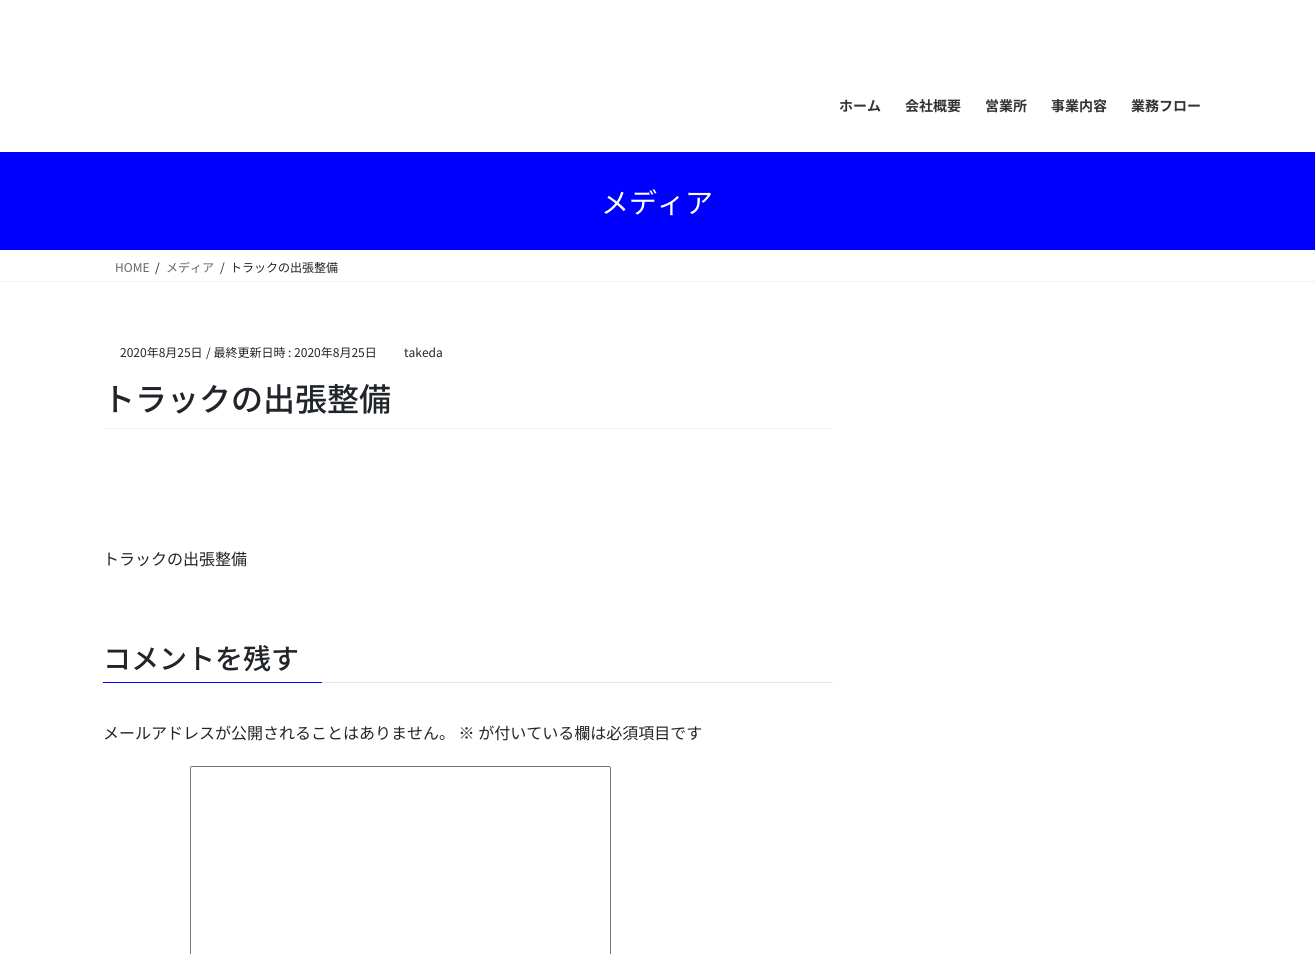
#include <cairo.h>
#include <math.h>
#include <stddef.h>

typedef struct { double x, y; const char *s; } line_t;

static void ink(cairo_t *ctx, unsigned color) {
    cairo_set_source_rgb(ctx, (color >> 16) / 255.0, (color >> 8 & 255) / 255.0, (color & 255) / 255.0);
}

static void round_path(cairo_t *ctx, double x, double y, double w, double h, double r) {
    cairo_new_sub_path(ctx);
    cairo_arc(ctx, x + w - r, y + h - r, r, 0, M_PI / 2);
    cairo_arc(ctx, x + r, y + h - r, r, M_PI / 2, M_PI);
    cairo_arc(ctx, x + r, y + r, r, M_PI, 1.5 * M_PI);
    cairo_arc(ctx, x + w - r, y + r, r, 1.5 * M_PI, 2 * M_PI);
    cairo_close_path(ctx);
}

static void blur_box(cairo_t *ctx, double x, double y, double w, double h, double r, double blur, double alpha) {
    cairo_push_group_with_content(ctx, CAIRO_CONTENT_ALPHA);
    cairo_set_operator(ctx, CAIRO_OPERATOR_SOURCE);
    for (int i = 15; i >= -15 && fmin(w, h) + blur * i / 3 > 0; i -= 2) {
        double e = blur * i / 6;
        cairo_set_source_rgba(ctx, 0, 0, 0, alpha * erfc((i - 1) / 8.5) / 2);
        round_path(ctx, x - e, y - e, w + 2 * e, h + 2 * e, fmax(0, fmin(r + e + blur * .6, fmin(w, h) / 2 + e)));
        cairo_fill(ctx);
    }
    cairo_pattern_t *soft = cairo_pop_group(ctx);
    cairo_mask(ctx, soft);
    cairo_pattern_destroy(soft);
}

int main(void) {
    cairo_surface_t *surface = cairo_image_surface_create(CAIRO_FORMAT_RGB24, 1315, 954);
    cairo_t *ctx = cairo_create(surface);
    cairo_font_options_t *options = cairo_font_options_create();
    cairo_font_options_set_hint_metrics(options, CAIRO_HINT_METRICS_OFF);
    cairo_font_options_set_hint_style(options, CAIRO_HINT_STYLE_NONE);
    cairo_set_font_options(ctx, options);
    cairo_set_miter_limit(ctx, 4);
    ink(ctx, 0xFFFFFF);
    cairo_paint(ctx);
    ink(ctx, 0x0000FF);
    cairo_rectangle(ctx, 0, 152, 1315, 98);
    cairo_fill(ctx);
    cairo_save(ctx);
    cairo_rectangle(ctx, 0, 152, 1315, 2);
    cairo_clip(ctx);
    ink(ctx, 0x000000);
    blur_box(ctx, 0, 1, 1315, 152, 0, 1.5, 0.1);
    cairo_restore(ctx);
    cairo_select_font_face(ctx, "Noto Sans JP", CAIRO_FONT_SLANT_NORMAL, CAIRO_FONT_WEIGHT_BOLD);
    cairo_set_font_size(ctx, 14);
    ink(ctx, 0x333333);
    {
        static const line_t items[] = {
            {839, 111, "ホーム"},
            {905, 111, "会社概要"},
            {985, 111, "営業所"},
            {1051, 111, "事業内容"},
            {1131, 111, "業務フロー"},
        };
        for (size_t i = 0; i < sizeof items / sizeof *items; i++) {
            cairo_move_to(ctx, items[i].x, items[i].y);
            cairo_show_text(ctx, items[i].s);
        }
    }
    cairo_select_font_face(ctx, "Noto Sans JP", CAIRO_FONT_SLANT_NORMAL, CAIRO_FONT_WEIGHT_NORMAL);
    cairo_set_font_size(ctx, 28);
    ink(ctx, 0xFFFFFF);
    cairo_move_to(ctx, 601, 213);
    cairo_show_text(ctx, "メディア");
    ink(ctx, 0xF2F2F2);
    cairo_rectangle(ctx, 0, 281, 1315, 1);
    cairo_fill(ctx);
    cairo_set_font_size(ctx, 12);
    ink(ctx, 0x666666);
    cairo_move_to(ctx, 115, 272);
    cairo_show_text(ctx, "HOME");
    ink(ctx, 0x212529);
    cairo_move_to(ctx, 155, 272);
    cairo_show_text(ctx, "/");
    ink(ctx, 0x666666);
    cairo_move_to(ctx, 166, 272);
    cairo_show_text(ctx, "メディア");
    ink(ctx, 0x212529);
    cairo_move_to(ctx, 220, 272);
    cairo_show_text(ctx, "/");
    cairo_move_to(ctx, 230, 272);
    cairo_show_text(ctx, "トラックの出張整備");
    ink(ctx, 0xF2F2F2);
    cairo_rectangle(ctx, 103, 428, 730, 1);
    cairo_fill(ctx);
    ink(ctx, 0x212529);
    {
        static const line_t items[] = {
            {120, 357, "2020年8月25日"},
            {206, 357, "/ 最終更新日時 : 2020年8月25日"},
            {404, 357, "takeda"},
        };
        for (size_t i = 0; i < sizeof items / sizeof *items; i++) {
            cairo_move_to(ctx, items[i].x, items[i].y);
            cairo_show_text(ctx, items[i].s);
        }
    }
    cairo_select_font_face(ctx, "Noto Sans JP Medium", CAIRO_FONT_SLANT_NORMAL, CAIRO_FONT_WEIGHT_NORMAL);
    cairo_set_font_size(ctx, 32);
    cairo_move_to(ctx, 103, 411);
    cairo_show_text(ctx, "トラックの出張整備");
    cairo_select_font_face(ctx, "Noto Sans JP", CAIRO_FONT_SLANT_NORMAL, CAIRO_FONT_WEIGHT_NORMAL);
    cairo_set_font_size(ctx, 16);
    cairo_move_to(ctx, 103, 565);
    cairo_show_text(ctx, "トラックの出張整備");
    ink(ctx, 0xE6E6E6);
    cairo_rectangle(ctx, 322, 682, 511, 1);
    cairo_fill(ctx);
    cairo_select_font_face(ctx, "Noto Sans JP Medium", CAIRO_FONT_SLANT_NORMAL, CAIRO_FONT_WEIGHT_NORMAL);
    cairo_set_font_size(ctx, 28);
    ink(ctx, 0x212529);
    cairo_move_to(ctx, 103, 669);
    cairo_show_text(ctx, "コメントを残す");
    ink(ctx, 0x0000FF);
    cairo_rectangle(ctx, 103, 682, 219, 1);
    cairo_fill(ctx);
    cairo_select_font_face(ctx, "Noto Sans JP", CAIRO_FONT_SLANT_NORMAL, CAIRO_FONT_WEIGHT_NORMAL);
    cairo_set_font_size(ctx, 16);
    ink(ctx, 0x212529);
    cairo_move_to(ctx, 103, 739);
    cairo_show_text(ctx, "メールアドレスが公開されることはありません。 ※ が付いている欄は必須項目です");
    round_path(ctx, 190.5, 766.5, 420, 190, 1.5);
    ink(ctx, 0x767676);
    cairo_set_line_width(ctx, 1);
    cairo_stroke(ctx);
    cairo_surface_write_to_png(surface, "image.png");
    cairo_font_options_destroy(options);
    cairo_destroy(ctx);
    cairo_surface_destroy(surface);
    return 0;
}
